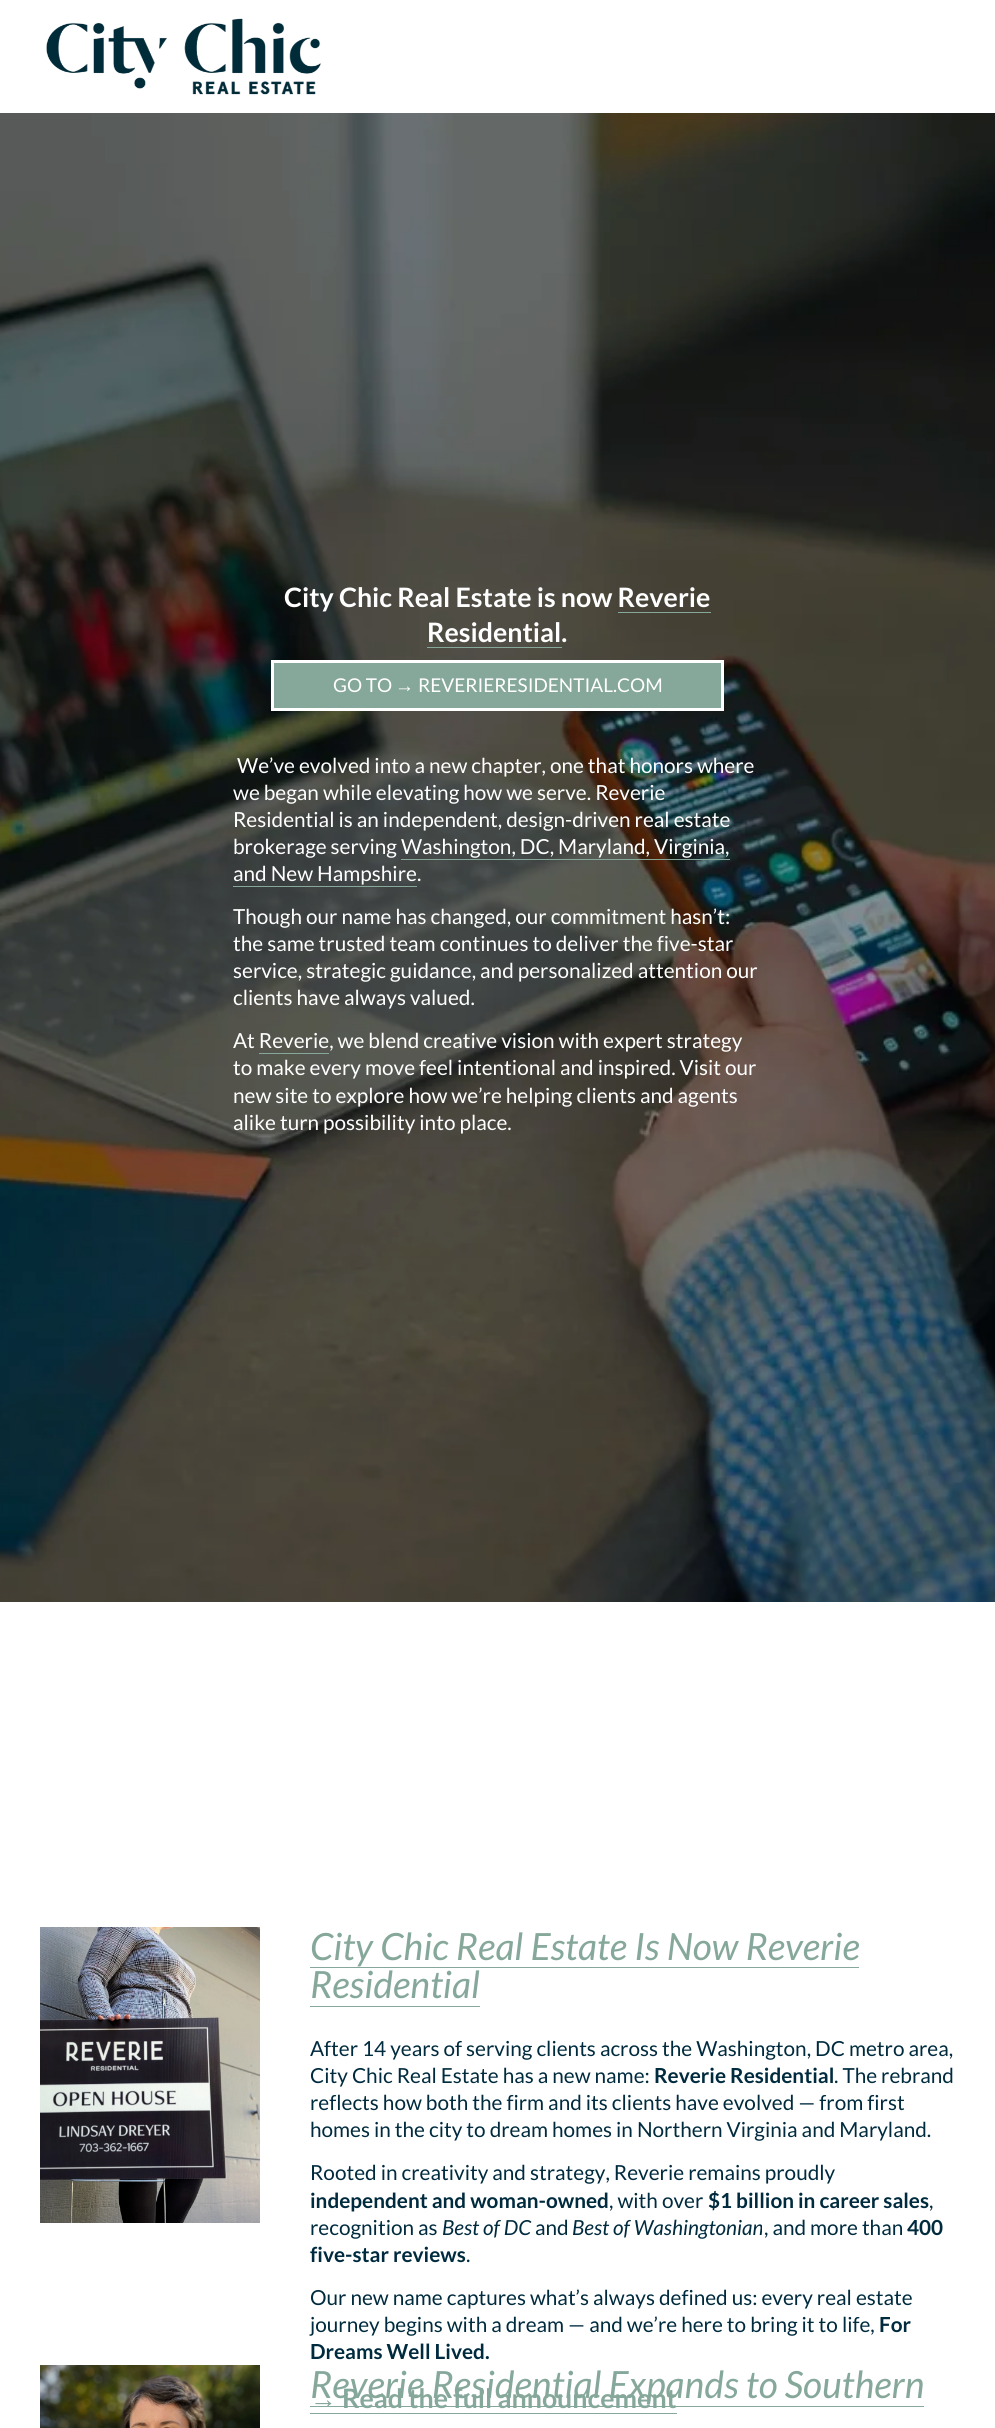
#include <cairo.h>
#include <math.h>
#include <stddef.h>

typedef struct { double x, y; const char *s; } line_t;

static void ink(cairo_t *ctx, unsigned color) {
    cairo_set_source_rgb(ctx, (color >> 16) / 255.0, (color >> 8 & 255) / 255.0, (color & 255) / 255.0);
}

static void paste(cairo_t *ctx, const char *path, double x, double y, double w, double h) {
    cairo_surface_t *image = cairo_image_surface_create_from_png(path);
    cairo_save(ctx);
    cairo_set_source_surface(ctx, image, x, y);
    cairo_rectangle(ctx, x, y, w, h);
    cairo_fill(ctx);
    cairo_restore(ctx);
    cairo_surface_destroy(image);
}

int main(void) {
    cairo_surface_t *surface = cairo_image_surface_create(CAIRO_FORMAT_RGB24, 995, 2428);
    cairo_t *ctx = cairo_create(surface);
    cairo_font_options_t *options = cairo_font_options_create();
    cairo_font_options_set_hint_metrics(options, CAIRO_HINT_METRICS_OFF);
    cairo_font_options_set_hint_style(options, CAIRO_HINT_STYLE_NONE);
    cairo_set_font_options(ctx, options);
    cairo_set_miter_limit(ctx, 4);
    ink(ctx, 0xFFFFFF);
    cairo_paint(ctx);
    paste(ctx, "media/1.png", 46, 18, 275, 77);
    paste(ctx, "media/2.png", 0, 113, 995, 1489);
    cairo_select_font_face(ctx, "Lato", CAIRO_FONT_SLANT_NORMAL, CAIRO_FONT_WEIGHT_BOLD);
    cairo_set_font_size(ctx, 26.75);
    ink(ctx, 0xFFFFFF);
    cairo_move_to(ctx, 284, 607);
    cairo_show_text(ctx, "City Chic Real Estate is now Reverie");
    cairo_move_to(ctx, 427, 642);
    cairo_show_text(ctx, "Residential.");
    ink(ctx, 0x86A89A);
    cairo_rectangle(ctx, 618, 612, 93, 1);
    cairo_fill(ctx);
    cairo_rectangle(ctx, 427, 647, 135, 1);
    cairo_fill(ctx);
    cairo_rectangle(ctx, 272.5, 661.5, 450, 48);
    cairo_fill_preserve(ctx);
    ink(ctx, 0xFFFFFF);
    cairo_set_line_width(ctx, 3);
    cairo_stroke(ctx);
    cairo_select_font_face(ctx, "Lato", CAIRO_FONT_SLANT_NORMAL, CAIRO_FONT_WEIGHT_NORMAL);
    cairo_set_font_size(ctx, 19);
    cairo_move_to(ctx, 333, 692);
    cairo_show_text(ctx, "GO TO");
    cairo_select_font_face(ctx, "Liberation Serif", CAIRO_FONT_SLANT_NORMAL, CAIRO_FONT_WEIGHT_NORMAL);
    cairo_move_to(ctx, 395, 692);
    cairo_show_text(ctx, "→");
    cairo_select_font_face(ctx, "Lato", CAIRO_FONT_SLANT_NORMAL, CAIRO_FONT_WEIGHT_NORMAL);
    cairo_move_to(ctx, 418, 692);
    cairo_show_text(ctx, "REVERIERESIDENTIAL.COM");
    cairo_set_font_size(ctx, 20.75);
    {
        static const line_t items[] = {
            {237, 773, "We’ve evolved into a new chapter, one that honors where"},
            {233, 800, "we began while elevating how we serve. Reverie"},
            {233, 827, "Residential is an independent, design-driven real estate"},
            {233, 854, "brokerage serving Washington, DC, Maryland, Virginia,"},
            {233, 881, "and New Hampshire."},
        };
        for (size_t i = 0; i < sizeof items / sizeof *items; i++) {
            cairo_move_to(ctx, items[i].x, items[i].y);
            cairo_show_text(ctx, items[i].s);
        }
    }
    ink(ctx, 0x86A89A);
    cairo_rectangle(ctx, 401, 859, 329, 1);
    cairo_fill(ctx);
    cairo_rectangle(ctx, 233, 886, 184, 1);
    cairo_fill(ctx);
    ink(ctx, 0xFFFFFF);
    {
        static const line_t items[] = {
            {233, 924, "Though our name has changed, our commitment hasn’t:"},
            {233, 951, "the same trusted team continues to deliver the five-star"},
            {233, 978, "service, strategic guidance, and personalized attention our"},
            {233, 1005, "clients have always valued."},
            {233, 1048, "At Reverie, we blend creative vision with expert strategy"},
        };
        for (size_t i = 0; i < sizeof items / sizeof *items; i++) {
            cairo_move_to(ctx, items[i].x, items[i].y);
            cairo_show_text(ctx, items[i].s);
        }
    }
    ink(ctx, 0x86A89A);
    cairo_rectangle(ctx, 259, 1053, 70, 1);
    cairo_fill(ctx);
    ink(ctx, 0xFFFFFF);
    {
        static const line_t items[] = {
            {233, 1075, "to make every move feel intentional and inspired. Visit our"},
            {233, 1103, "new site to explore how we’re helping clients and agents"},
            {233, 1130, "alike turn possibility into place."},
        };
        for (size_t i = 0; i < sizeof items / sizeof *items; i++) {
            cairo_move_to(ctx, items[i].x, items[i].y);
            cairo_show_text(ctx, items[i].s);
        }
    }
    paste(ctx, "media/3.png", 40, 1927, 220, 296);
    cairo_select_font_face(ctx, "Lato", CAIRO_FONT_SLANT_ITALIC, CAIRO_FONT_WEIGHT_NORMAL);
    cairo_set_font_size(ctx, 37.5);
    ink(ctx, 0x86A89A);
    cairo_move_to(ctx, 310, 1960);
    cairo_show_text(ctx, "City Chic Real Estate Is Now Reverie");
    cairo_move_to(ctx, 310, 1998);
    cairo_show_text(ctx, "Residential");
    cairo_rectangle(ctx, 310, 1967, 549, 1);
    cairo_fill(ctx);
    cairo_rectangle(ctx, 310, 2006, 170, 1);
    cairo_fill(ctx);
    cairo_select_font_face(ctx, "Lato", CAIRO_FONT_SLANT_NORMAL, CAIRO_FONT_WEIGHT_NORMAL);
    cairo_set_font_size(ctx, 20.75);
    ink(ctx, 0x002B3E);
    cairo_move_to(ctx, 310, 2056);
    cairo_show_text(ctx, "After 14 years of serving clients across the Washington, DC metro area,");
    cairo_move_to(ctx, 310, 2083);
    cairo_show_text(ctx, "City Chic Real Estate has a new name:");
    cairo_select_font_face(ctx, "Lato", CAIRO_FONT_SLANT_NORMAL, CAIRO_FONT_WEIGHT_BOLD);
    cairo_move_to(ctx, 654, 2083);
    cairo_show_text(ctx, "Reverie Residential");
    cairo_select_font_face(ctx, "Lato", CAIRO_FONT_SLANT_NORMAL, CAIRO_FONT_WEIGHT_NORMAL);
    {
        static const line_t items[] = {
            {834, 2083, ". The rebrand"},
            {310, 2110, "reflects how both the firm and its clients have evolved — from first"},
            {310, 2137, "homes in the city to dream homes in Northern Virginia and Maryland."},
            {310, 2180, "Rooted in creativity and strategy, Reverie remains proudly"},
        };
        for (size_t i = 0; i < sizeof items / sizeof *items; i++) {
            cairo_move_to(ctx, items[i].x, items[i].y);
            cairo_show_text(ctx, items[i].s);
        }
    }
    cairo_select_font_face(ctx, "Lato", CAIRO_FONT_SLANT_NORMAL, CAIRO_FONT_WEIGHT_BOLD);
    cairo_move_to(ctx, 310, 2208);
    cairo_show_text(ctx, "independent and woman-owned");
    cairo_select_font_face(ctx, "Lato", CAIRO_FONT_SLANT_NORMAL, CAIRO_FONT_WEIGHT_NORMAL);
    cairo_move_to(ctx, 609, 2208);
    cairo_show_text(ctx, ", with over");
    cairo_select_font_face(ctx, "Lato", CAIRO_FONT_SLANT_NORMAL, CAIRO_FONT_WEIGHT_BOLD);
    cairo_move_to(ctx, 708, 2208);
    cairo_show_text(ctx, "$1 billion in career sales");
    cairo_select_font_face(ctx, "Lato", CAIRO_FONT_SLANT_NORMAL, CAIRO_FONT_WEIGHT_NORMAL);
    cairo_move_to(ctx, 929, 2208);
    cairo_show_text(ctx, ",");
    cairo_move_to(ctx, 310, 2235);
    cairo_show_text(ctx, "recognition as");
    cairo_select_font_face(ctx, "Lato", CAIRO_FONT_SLANT_ITALIC, CAIRO_FONT_WEIGHT_NORMAL);
    cairo_move_to(ctx, 442, 2235);
    cairo_show_text(ctx, "Best of DC");
    cairo_select_font_face(ctx, "Lato", CAIRO_FONT_SLANT_NORMAL, CAIRO_FONT_WEIGHT_NORMAL);
    cairo_move_to(ctx, 535, 2235);
    cairo_show_text(ctx, "and");
    cairo_select_font_face(ctx, "Lato", CAIRO_FONT_SLANT_ITALIC, CAIRO_FONT_WEIGHT_NORMAL);
    cairo_move_to(ctx, 572, 2235);
    cairo_show_text(ctx, "Best of Washingtonian");
    cairo_select_font_face(ctx, "Lato", CAIRO_FONT_SLANT_NORMAL, CAIRO_FONT_WEIGHT_NORMAL);
    cairo_move_to(ctx, 764, 2235);
    cairo_show_text(ctx, ", and more than");
    cairo_select_font_face(ctx, "Lato", CAIRO_FONT_SLANT_NORMAL, CAIRO_FONT_WEIGHT_BOLD);
    cairo_move_to(ctx, 907, 2235);
    cairo_show_text(ctx, "400");
    cairo_move_to(ctx, 310, 2262);
    cairo_show_text(ctx, "five-star reviews");
    cairo_select_font_face(ctx, "Lato", CAIRO_FONT_SLANT_NORMAL, CAIRO_FONT_WEIGHT_NORMAL);
    {
        static const line_t items[] = {
            {466, 2262, "."},
            {310, 2305, "Our new name captures what’s always defined us: every real estate"},
            {310, 2332, "journey begins with a dream — and we’re here to bring it to life,"},
        };
        for (size_t i = 0; i < sizeof items / sizeof *items; i++) {
            cairo_move_to(ctx, items[i].x, items[i].y);
            cairo_show_text(ctx, items[i].s);
        }
    }
    cairo_select_font_face(ctx, "Lato", CAIRO_FONT_SLANT_NORMAL, CAIRO_FONT_WEIGHT_BOLD);
    cairo_move_to(ctx, 879, 2332);
    cairo_show_text(ctx, "For");
    cairo_move_to(ctx, 310, 2359);
    cairo_show_text(ctx, "Dreams Well Lived.");
    cairo_select_font_face(ctx, "Liberation Serif", CAIRO_FONT_SLANT_NORMAL, CAIRO_FONT_WEIGHT_BOLD);
    cairo_set_font_size(ctx, 26.75);
    ink(ctx, 0x86A89A);
    cairo_move_to(ctx, 310, 2408);
    cairo_show_text(ctx, "→");
    cairo_rectangle(ctx, 310, 2413, 367, 1);
    cairo_fill(ctx);
    cairo_select_font_face(ctx, "Lato", CAIRO_FONT_SLANT_NORMAL, CAIRO_FONT_WEIGHT_BOLD);
    cairo_move_to(ctx, 342, 2408);
    cairo_show_text(ctx, "Read the full announcement");
    paste(ctx, "media/4.png", 40, 2365, 220, 63);
    cairo_select_font_face(ctx, "Lato", CAIRO_FONT_SLANT_ITALIC, CAIRO_FONT_WEIGHT_NORMAL);
    cairo_set_font_size(ctx, 37.5);
    cairo_move_to(ctx, 310, 2398);
    cairo_show_text(ctx, "Reverie Residential Expands to Southern");
    cairo_rectangle(ctx, 310, 2406, 614, 1);
    cairo_fill(ctx);
    cairo_surface_write_to_png(surface, "image.png");
    cairo_font_options_destroy(options);
    cairo_destroy(ctx);
    cairo_surface_destroy(surface);
    return 0;
}
